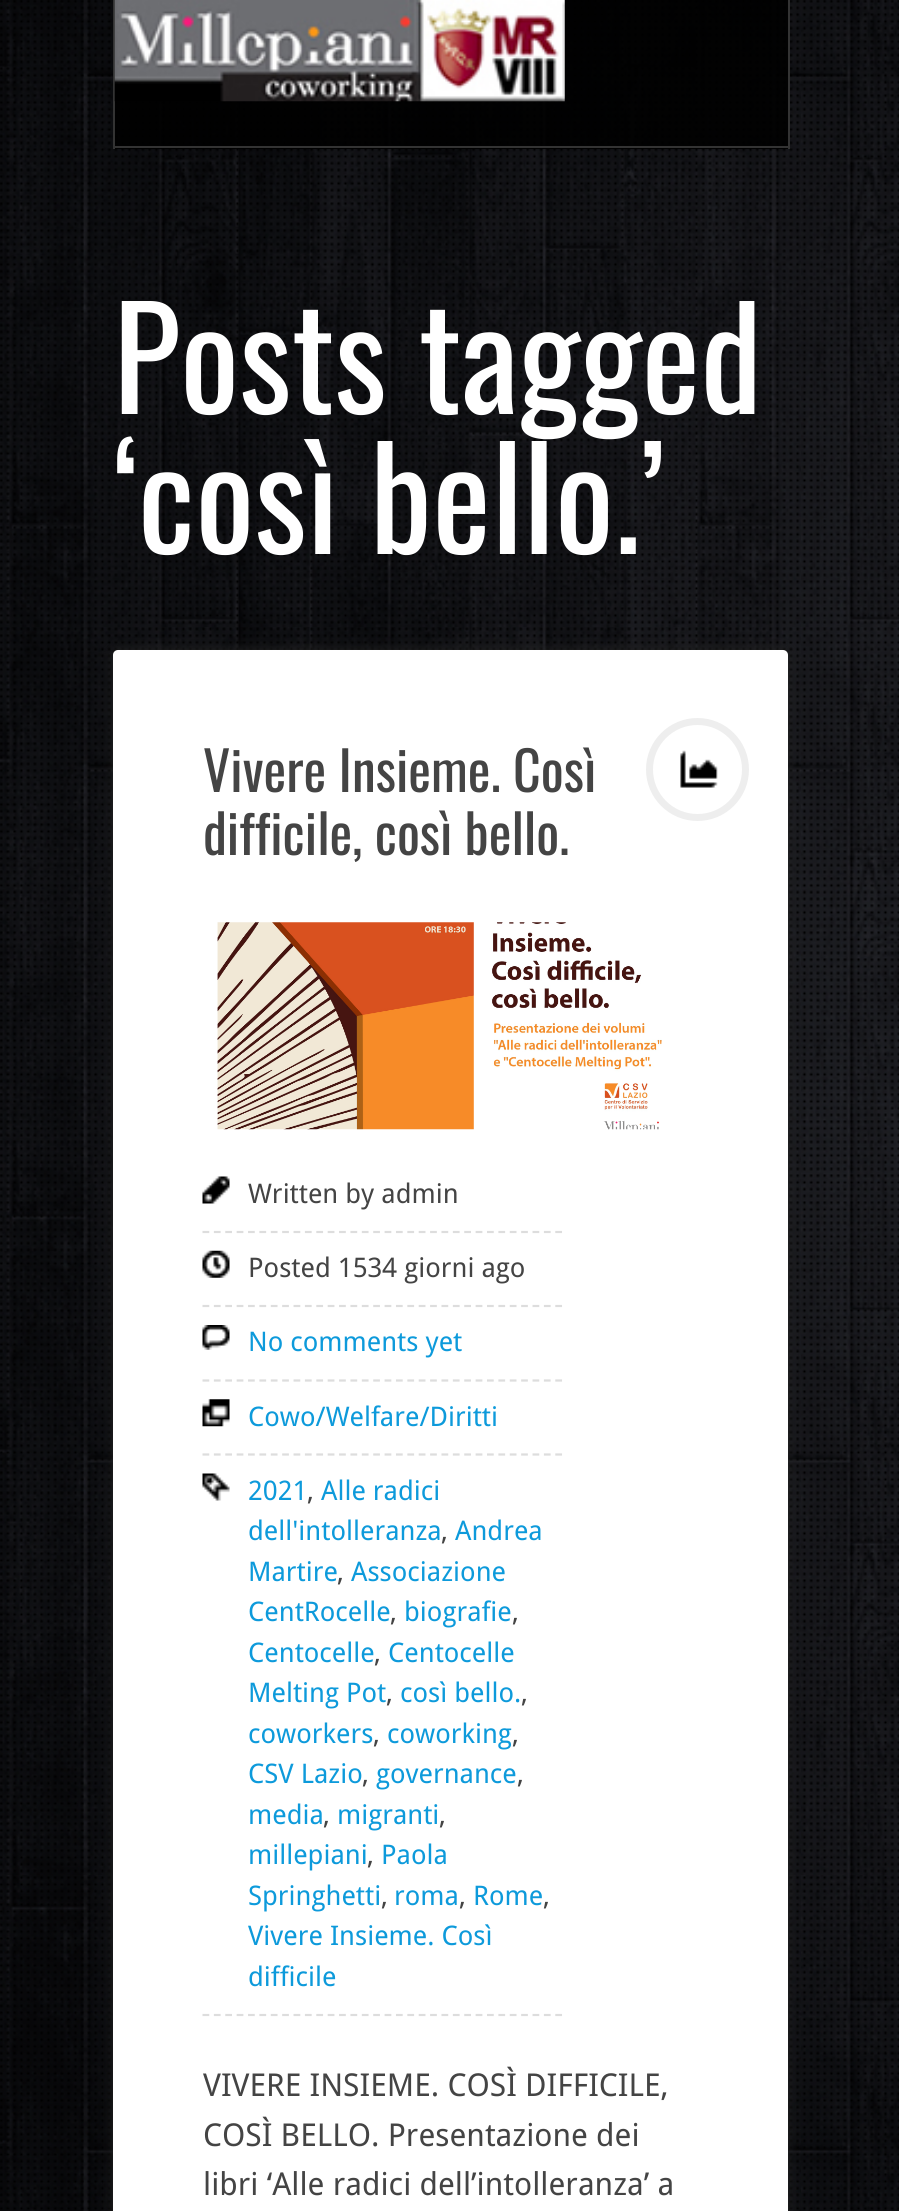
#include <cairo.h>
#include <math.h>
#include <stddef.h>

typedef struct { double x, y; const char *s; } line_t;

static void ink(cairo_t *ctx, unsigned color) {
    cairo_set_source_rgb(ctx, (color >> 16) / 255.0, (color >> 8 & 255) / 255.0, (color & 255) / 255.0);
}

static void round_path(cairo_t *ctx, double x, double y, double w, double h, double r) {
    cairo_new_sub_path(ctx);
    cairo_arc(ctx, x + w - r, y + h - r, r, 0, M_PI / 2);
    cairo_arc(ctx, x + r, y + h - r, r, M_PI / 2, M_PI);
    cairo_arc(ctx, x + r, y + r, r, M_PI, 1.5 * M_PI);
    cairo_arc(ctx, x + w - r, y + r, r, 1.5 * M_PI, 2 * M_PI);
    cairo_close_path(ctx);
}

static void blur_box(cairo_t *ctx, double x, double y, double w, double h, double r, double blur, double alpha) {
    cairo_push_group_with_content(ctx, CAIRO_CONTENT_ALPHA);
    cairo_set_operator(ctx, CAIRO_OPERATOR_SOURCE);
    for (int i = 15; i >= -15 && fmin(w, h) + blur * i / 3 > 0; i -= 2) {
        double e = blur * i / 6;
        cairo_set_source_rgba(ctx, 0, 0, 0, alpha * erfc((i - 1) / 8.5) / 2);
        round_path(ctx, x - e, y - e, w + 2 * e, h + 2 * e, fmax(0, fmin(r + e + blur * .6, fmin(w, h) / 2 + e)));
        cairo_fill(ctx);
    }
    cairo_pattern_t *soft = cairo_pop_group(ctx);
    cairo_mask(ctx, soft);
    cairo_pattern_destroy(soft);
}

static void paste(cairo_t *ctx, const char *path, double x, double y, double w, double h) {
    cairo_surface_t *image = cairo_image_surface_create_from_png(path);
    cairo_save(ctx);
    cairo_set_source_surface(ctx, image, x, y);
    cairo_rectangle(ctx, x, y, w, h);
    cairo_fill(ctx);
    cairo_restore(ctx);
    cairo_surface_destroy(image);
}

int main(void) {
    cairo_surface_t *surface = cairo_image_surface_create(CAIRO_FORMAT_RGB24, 899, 2211);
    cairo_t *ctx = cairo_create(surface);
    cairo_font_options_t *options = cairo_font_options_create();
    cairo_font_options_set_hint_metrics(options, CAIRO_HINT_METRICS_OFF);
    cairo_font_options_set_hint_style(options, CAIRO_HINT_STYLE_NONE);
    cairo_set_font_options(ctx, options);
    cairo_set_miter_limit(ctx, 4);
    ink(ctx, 0xFFFFFF);
    cairo_paint(ctx);
    paste(ctx, "media/1.png", 0, 0, 899, 2211);
    paste(ctx, "media/2.png", 0, 0, 899, 2210);
    cairo_set_source_rgba(ctx, 0, 0, 0, 0.9);
    cairo_rectangle(ctx, 115, 0, 673, 149);
    cairo_fill(ctx);
    ink(ctx, 0x333333);
    cairo_rectangle(ctx, 788, 0, 2, 149);
    cairo_fill(ctx);
    cairo_rectangle(ctx, 113, 146, 677, 2);
    cairo_fill(ctx);
    cairo_rectangle(ctx, 113, 0, 2, 149);
    cairo_fill(ctx);
    paste(ctx, "media/3.png", 114, 0, 451, 102);
    cairo_select_font_face(ctx, "Oswald", CAIRO_FONT_SLANT_NORMAL, CAIRO_FONT_WEIGHT_NORMAL);
    cairo_set_font_size(ctx, 139.5);
    ink(ctx, 0xFFFFFF);
    cairo_move_to(ctx, 113, 414);
    cairo_show_text(ctx, "Posts tagged");
    cairo_move_to(ctx, 113, 554);
    cairo_show_text(ctx, "‘così bello.’");
    ink(ctx, 0x222222);
    blur_box(ctx, 113, 650, 675, 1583, 5, 5.5, 1);
    ink(ctx, 0xFFFFFF);
    round_path(ctx, 113, 650, 675, 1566, 5);
    cairo_fill(ctx);
    cairo_set_font_size(ctx, 54);
    ink(ctx, 0x444444);
    cairo_move_to(ctx, 203, 792);
    cairo_show_text(ctx, "Vivere Insieme. Così");
    paste(ctx, "media/4.png", 680, 750, 38, 38);
    cairo_arc(ctx, 697.5, 769.5, 48, 0, 2 * M_PI);
    ink(ctx, 0xEEEEEE);
    cairo_set_line_width(ctx, 7);
    cairo_stroke(ctx);
    ink(ctx, 0x444444);
    cairo_move_to(ctx, 203, 855);
    cairo_show_text(ctx, "difficile, così bello.");
    paste(ctx, "media/5.png", 217, 922, 445, 208);
    paste(ctx, "media/6.png", 202, 1176, 28, 28);
    cairo_new_path(ctx);
    cairo_move_to(ctx, 202.5, 1232);
    cairo_line_to(ctx, 562.5, 1232);
    ink(ctx, 0xDDDDDD);
    cairo_set_line_width(ctx, 2.2);
    cairo_set_dash(ctx, (double[]){6.75, 4.63}, 2, 0);
    cairo_stroke(ctx);
    cairo_select_font_face(ctx, "Droid Sans", CAIRO_FONT_SLANT_NORMAL, CAIRO_FONT_WEIGHT_NORMAL);
    cairo_set_font_size(ctx, 27);
    ink(ctx, 0x444444);
    cairo_move_to(ctx, 248, 1203);
    cairo_show_text(ctx, "Written by admin");
    paste(ctx, "media/7.png", 202, 1250, 28, 28);
    cairo_new_path(ctx);
    cairo_move_to(ctx, 202.5, 1306);
    cairo_line_to(ctx, 562.5, 1306);
    ink(ctx, 0xDDDDDD);
    cairo_stroke(ctx);
    ink(ctx, 0x444444);
    cairo_move_to(ctx, 248, 1277);
    cairo_show_text(ctx, "Posted 1534 giorni ago");
    paste(ctx, "media/8.png", 202, 1325, 28, 25);
    cairo_new_path(ctx);
    cairo_move_to(ctx, 202.5, 1380.5);
    cairo_line_to(ctx, 562.5, 1380.5);
    ink(ctx, 0xDDDDDD);
    cairo_stroke(ctx);
    ink(ctx, 0x0D9ADB);
    cairo_move_to(ctx, 248, 1351);
    cairo_show_text(ctx, "No comments yet");
    paste(ctx, "media/9.png", 202, 1399, 28, 28);
    cairo_new_path(ctx);
    cairo_move_to(ctx, 202.5, 1454.5);
    cairo_line_to(ctx, 562.5, 1454.5);
    ink(ctx, 0xDDDDDD);
    cairo_stroke(ctx);
    ink(ctx, 0x0D9ADB);
    cairo_move_to(ctx, 248, 1426);
    cairo_show_text(ctx, "Cowo/Welfare/Diritti");
    paste(ctx, "media/10.png", 202, 1473, 28, 28);
    cairo_new_path(ctx);
    cairo_move_to(ctx, 202.5, 2015);
    cairo_line_to(ctx, 562.5, 2015);
    ink(ctx, 0xDDDDDD);
    cairo_stroke(ctx);
    ink(ctx, 0x0D9ADB);
    cairo_move_to(ctx, 248, 1500);
    cairo_show_text(ctx, "2021");
    ink(ctx, 0x444444);
    cairo_move_to(ctx, 307, 1500);
    cairo_show_text(ctx, ",");
    ink(ctx, 0x0D9ADB);
    cairo_move_to(ctx, 321, 1500);
    cairo_show_text(ctx, "Alle radici");
    cairo_move_to(ctx, 248, 1540);
    cairo_show_text(ctx, "dell'intolleranza");
    ink(ctx, 0x444444);
    cairo_move_to(ctx, 441, 1540);
    cairo_show_text(ctx, ",");
    ink(ctx, 0x0D9ADB);
    cairo_move_to(ctx, 455, 1540);
    cairo_show_text(ctx, "Andrea");
    cairo_move_to(ctx, 248, 1581);
    cairo_show_text(ctx, "Martire");
    ink(ctx, 0x444444);
    cairo_move_to(ctx, 337, 1581);
    cairo_show_text(ctx, ",");
    ink(ctx, 0x0D9ADB);
    cairo_move_to(ctx, 351, 1581);
    cairo_show_text(ctx, "Associazione");
    cairo_move_to(ctx, 248, 1621);
    cairo_show_text(ctx, "CentRocelle");
    ink(ctx, 0x444444);
    cairo_move_to(ctx, 390, 1621);
    cairo_show_text(ctx, ",");
    ink(ctx, 0x0D9ADB);
    cairo_move_to(ctx, 404, 1621);
    cairo_show_text(ctx, "biografie");
    ink(ctx, 0x444444);
    cairo_move_to(ctx, 512, 1621);
    cairo_show_text(ctx, ",");
    ink(ctx, 0x0D9ADB);
    cairo_move_to(ctx, 248, 1662);
    cairo_show_text(ctx, "Centocelle");
    ink(ctx, 0x444444);
    cairo_move_to(ctx, 374, 1662);
    cairo_show_text(ctx, ",");
    ink(ctx, 0x0D9ADB);
    cairo_move_to(ctx, 388, 1662);
    cairo_show_text(ctx, "Centocelle");
    cairo_move_to(ctx, 248, 1702);
    cairo_show_text(ctx, "Melting Pot");
    ink(ctx, 0x444444);
    cairo_move_to(ctx, 386, 1702);
    cairo_show_text(ctx, ",");
    ink(ctx, 0x0D9ADB);
    cairo_move_to(ctx, 400, 1702);
    cairo_show_text(ctx, "così bello.");
    ink(ctx, 0x444444);
    cairo_move_to(ctx, 521, 1702);
    cairo_show_text(ctx, ",");
    ink(ctx, 0x0D9ADB);
    cairo_move_to(ctx, 248, 1743);
    cairo_show_text(ctx, "coworkers");
    ink(ctx, 0x444444);
    cairo_move_to(ctx, 373, 1743);
    cairo_show_text(ctx, ",");
    ink(ctx, 0x0D9ADB);
    cairo_move_to(ctx, 387, 1743);
    cairo_show_text(ctx, "coworking");
    ink(ctx, 0x444444);
    cairo_move_to(ctx, 512, 1743);
    cairo_show_text(ctx, ",");
    ink(ctx, 0x0D9ADB);
    cairo_move_to(ctx, 248, 1783);
    cairo_show_text(ctx, "CSV Lazio");
    ink(ctx, 0x444444);
    cairo_move_to(ctx, 362, 1783);
    cairo_show_text(ctx, ",");
    ink(ctx, 0x0D9ADB);
    cairo_move_to(ctx, 376, 1783);
    cairo_show_text(ctx, "governance");
    ink(ctx, 0x444444);
    cairo_move_to(ctx, 517, 1783);
    cairo_show_text(ctx, ",");
    ink(ctx, 0x0D9ADB);
    cairo_move_to(ctx, 248, 1824);
    cairo_show_text(ctx, "media");
    ink(ctx, 0x444444);
    cairo_move_to(ctx, 323, 1824);
    cairo_show_text(ctx, ",");
    ink(ctx, 0x0D9ADB);
    cairo_move_to(ctx, 337, 1824);
    cairo_show_text(ctx, "migranti");
    ink(ctx, 0x444444);
    cairo_move_to(ctx, 439, 1824);
    cairo_show_text(ctx, ",");
    ink(ctx, 0x0D9ADB);
    cairo_move_to(ctx, 248, 1864);
    cairo_show_text(ctx, "millepiani");
    ink(ctx, 0x444444);
    cairo_move_to(ctx, 367, 1864);
    cairo_show_text(ctx, ",");
    ink(ctx, 0x0D9ADB);
    cairo_move_to(ctx, 381, 1864);
    cairo_show_text(ctx, "Paola");
    cairo_move_to(ctx, 248, 1905);
    cairo_show_text(ctx, "Springhetti");
    ink(ctx, 0x444444);
    cairo_move_to(ctx, 381, 1905);
    cairo_show_text(ctx, ",");
    ink(ctx, 0x0D9ADB);
    cairo_move_to(ctx, 394, 1905);
    cairo_show_text(ctx, "roma");
    ink(ctx, 0x444444);
    cairo_move_to(ctx, 459, 1905);
    cairo_show_text(ctx, ",");
    ink(ctx, 0x0D9ADB);
    cairo_move_to(ctx, 473, 1905);
    cairo_show_text(ctx, "Rome");
    ink(ctx, 0x444444);
    cairo_move_to(ctx, 543, 1905);
    cairo_show_text(ctx, ",");
    ink(ctx, 0x0D9ADB);
    cairo_move_to(ctx, 248, 1945);
    cairo_show_text(ctx, "Vivere Insieme. Così");
    cairo_move_to(ctx, 248, 1986);
    cairo_show_text(ctx, "difficile");
    cairo_set_font_size(ctx, 31.5);
    ink(ctx, 0x444444);
    {
        static const line_t items[] = {
            {203, 2096, "VIVERE INSIEME. COSÌ DIFFICILE,"},
            {203, 2146, "COSÌ BELLO. Presentazione dei"},
            {203, 2195, "libri ‘Alle radici dell’intolleranza’ a"},
        };
        for (size_t i = 0; i < sizeof items / sizeof *items; i++) {
            cairo_move_to(ctx, items[i].x, items[i].y);
            cairo_show_text(ctx, items[i].s);
        }
    }
    cairo_surface_write_to_png(surface, "image.png");
    cairo_font_options_destroy(options);
    cairo_destroy(ctx);
    cairo_surface_destroy(surface);
    return 0;
}
